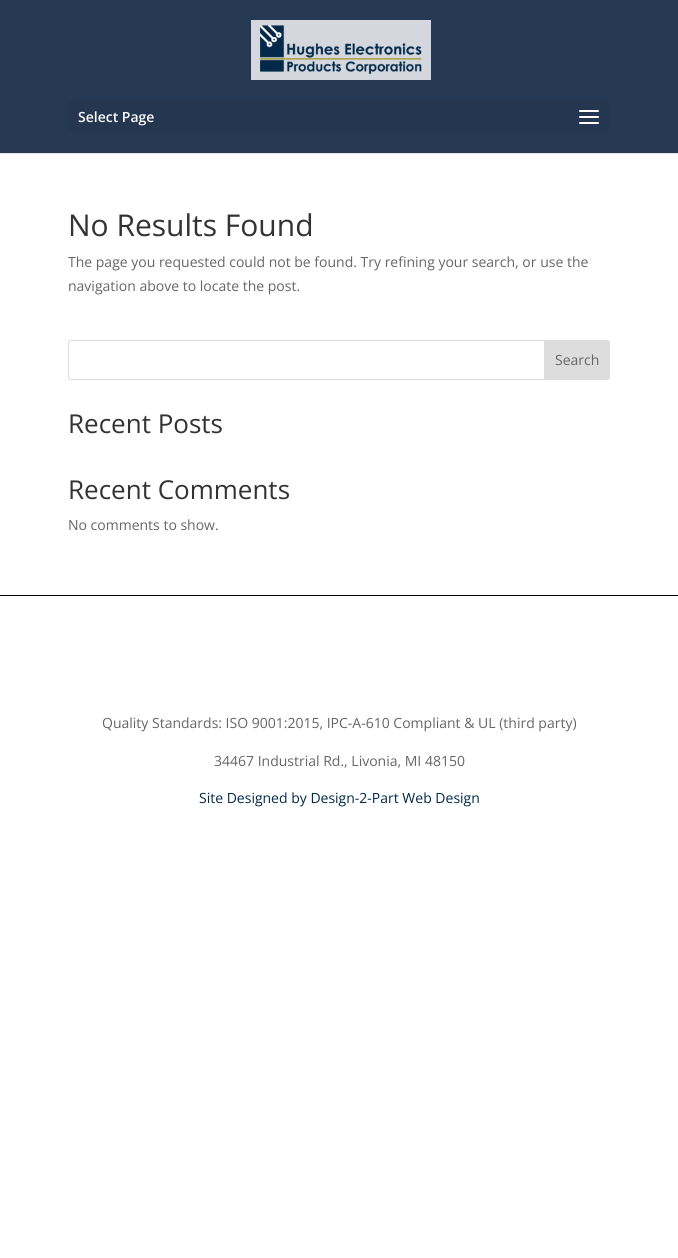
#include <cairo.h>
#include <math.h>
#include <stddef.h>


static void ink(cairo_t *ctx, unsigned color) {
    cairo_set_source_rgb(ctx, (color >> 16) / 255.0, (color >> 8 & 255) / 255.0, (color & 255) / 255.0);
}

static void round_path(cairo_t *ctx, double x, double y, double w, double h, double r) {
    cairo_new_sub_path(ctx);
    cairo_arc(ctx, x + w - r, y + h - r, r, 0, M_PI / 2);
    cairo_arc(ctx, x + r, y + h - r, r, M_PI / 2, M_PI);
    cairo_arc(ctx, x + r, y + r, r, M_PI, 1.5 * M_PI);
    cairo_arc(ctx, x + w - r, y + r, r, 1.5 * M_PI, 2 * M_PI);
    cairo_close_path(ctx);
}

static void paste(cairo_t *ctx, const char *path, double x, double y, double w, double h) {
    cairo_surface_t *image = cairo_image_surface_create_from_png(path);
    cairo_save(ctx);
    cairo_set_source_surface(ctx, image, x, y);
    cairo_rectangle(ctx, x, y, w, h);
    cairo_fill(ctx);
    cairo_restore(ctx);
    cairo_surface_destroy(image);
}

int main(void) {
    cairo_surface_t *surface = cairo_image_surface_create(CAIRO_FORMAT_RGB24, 678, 1258);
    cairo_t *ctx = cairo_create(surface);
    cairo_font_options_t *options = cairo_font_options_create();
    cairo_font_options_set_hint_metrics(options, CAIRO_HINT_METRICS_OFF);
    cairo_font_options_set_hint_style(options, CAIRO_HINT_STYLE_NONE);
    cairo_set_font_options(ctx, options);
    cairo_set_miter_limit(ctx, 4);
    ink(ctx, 0xFFFFFF);
    cairo_paint(ctx);
    ink(ctx, 0xE6E6E6);
    cairo_rectangle(ctx, 0, 153, 678, 1);
    cairo_fill(ctx);
    ink(ctx, 0x263954);
    cairo_rectangle(ctx, 0, 0, 678, 153);
    cairo_fill(ctx);
    paste(ctx, "media/1.png", 251, 20, 180, 60);
    ink(ctx, 0x243650);
    round_path(ctx, 68, 100, 542, 33, 5);
    cairo_fill(ctx);
    cairo_select_font_face(ctx, "Open Sans SemiBold", CAIRO_FONT_SLANT_NORMAL, CAIRO_FONT_WEIGHT_NORMAL);
    cairo_set_font_size(ctx, 14);
    ink(ctx, 0xFCFCFC);
    cairo_move_to(ctx, 78, 122);
    cairo_show_text(ctx, "Select Page");
    paste(ctx, "media/2.png", 579, 110, 20, 14);
    cairo_select_font_face(ctx, "Open Sans", CAIRO_FONT_SLANT_NORMAL, CAIRO_FONT_WEIGHT_NORMAL);
    cairo_set_font_size(ctx, 30);
    ink(ctx, 0x333333);
    cairo_move_to(ctx, 68, 236);
    cairo_show_text(ctx, "No Results Found");
    cairo_set_font_size(ctx, 14);
    ink(ctx, 0x666666);
    cairo_move_to(ctx, 68, 267);
    cairo_show_text(ctx, "The page you requested could not be found. Try refining your search, or use the");
    cairo_move_to(ctx, 68, 291);
    cairo_show_text(ctx, "navigation above to locate the post.");
    round_path(ctx, 68.5, 340.5, 541, 39, 2.5);
    ink(ctx, 0xDDDDDD);
    cairo_set_line_width(ctx, 1);
    cairo_stroke(ctx);
    cairo_new_path(ctx);
    cairo_move_to(ctx, 544.5, 340.5);
    cairo_line_to(ctx, 607, 340.5);
    cairo_curve_to(ctx, 608.5, 340.5, 609.5, 341.5, 609.5, 343);
    cairo_line_to(ctx, 609.5, 377);
    cairo_curve_to(ctx, 609.5, 378.5, 608.5, 379.5, 607, 379.5);
    cairo_line_to(ctx, 544.5, 379.5);
    cairo_close_path(ctx);
    cairo_fill_preserve(ctx);
    cairo_stroke(ctx);
    ink(ctx, 0x666666);
    cairo_move_to(ctx, 555, 365);
    cairo_show_text(ctx, "Search");
    cairo_set_font_size(ctx, 26);
    ink(ctx, 0x333333);
    cairo_move_to(ctx, 68, 433);
    cairo_show_text(ctx, "Recent Posts");
    cairo_move_to(ctx, 68, 499);
    cairo_show_text(ctx, "Recent Comments");
    cairo_set_font_size(ctx, 14);
    ink(ctx, 0x666666);
    cairo_move_to(ctx, 68, 530);
    cairo_show_text(ctx, "No comments to show.");
    ink(ctx, 0x000000);
    cairo_rectangle(ctx, 0, 595, 678, 1);
    cairo_fill(ctx);
    ink(ctx, 0x666666);
    cairo_move_to(ctx, 102, 728);
    cairo_show_text(ctx, "Quality Standards: ISO 9001:2015, IPC-A-610 Compliant & UL (third party)");
    cairo_move_to(ctx, 214, 766);
    cairo_show_text(ctx, "34467 Industrial Rd., Livonia, MI 48150");
    ink(ctx, 0x022949);
    cairo_move_to(ctx, 199, 803);
    cairo_show_text(ctx, "Site Designed by Design-2-Part Web Design");
    cairo_surface_write_to_png(surface, "image.png");
    cairo_font_options_destroy(options);
    cairo_destroy(ctx);
    cairo_surface_destroy(surface);
    return 0;
}
